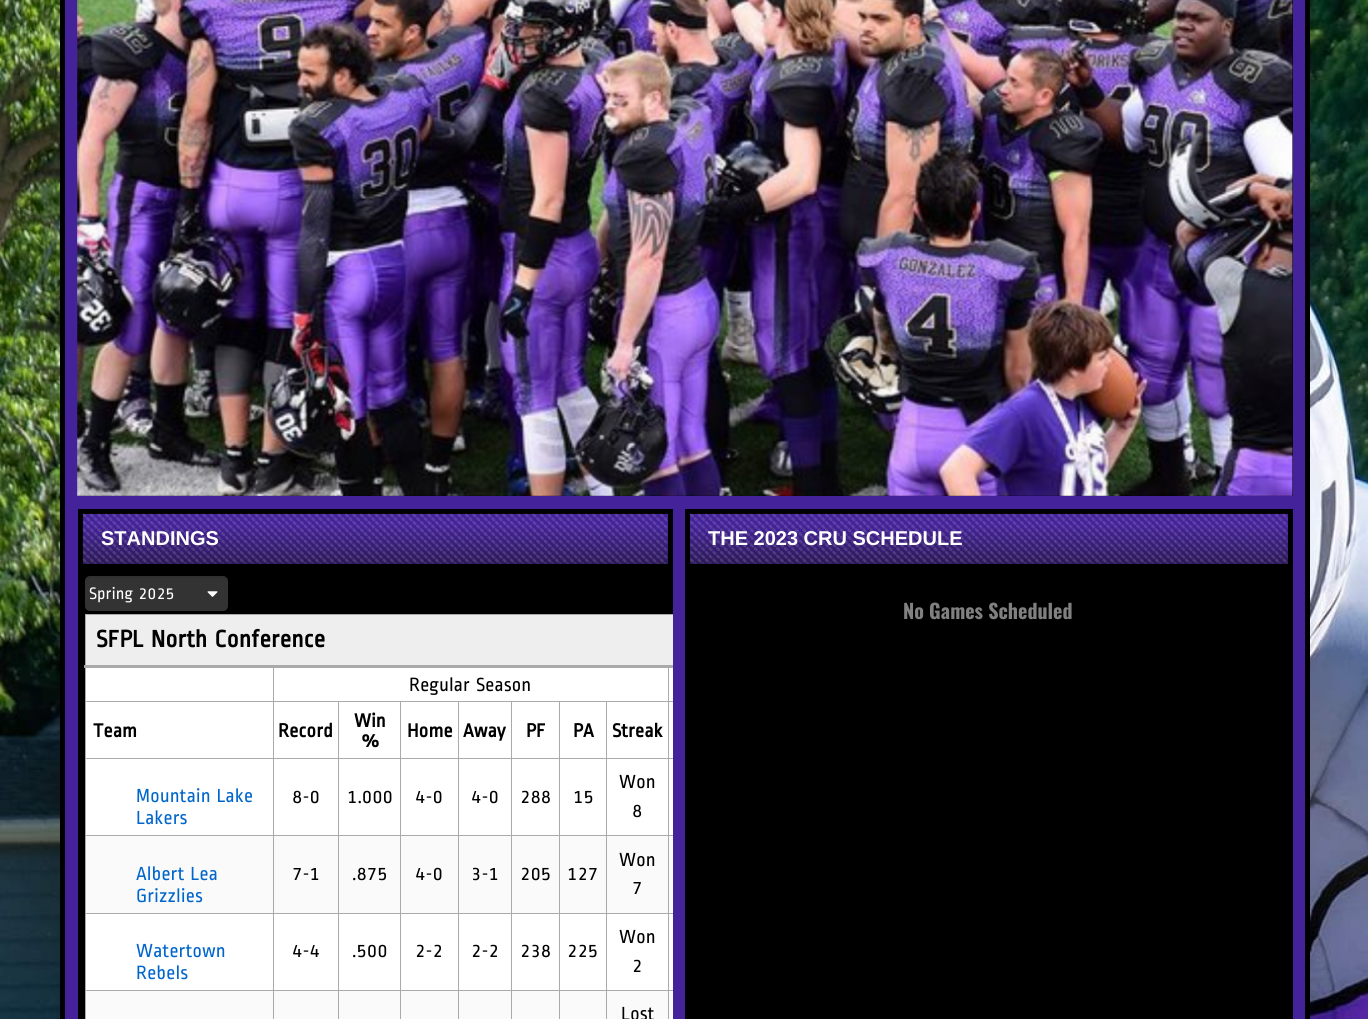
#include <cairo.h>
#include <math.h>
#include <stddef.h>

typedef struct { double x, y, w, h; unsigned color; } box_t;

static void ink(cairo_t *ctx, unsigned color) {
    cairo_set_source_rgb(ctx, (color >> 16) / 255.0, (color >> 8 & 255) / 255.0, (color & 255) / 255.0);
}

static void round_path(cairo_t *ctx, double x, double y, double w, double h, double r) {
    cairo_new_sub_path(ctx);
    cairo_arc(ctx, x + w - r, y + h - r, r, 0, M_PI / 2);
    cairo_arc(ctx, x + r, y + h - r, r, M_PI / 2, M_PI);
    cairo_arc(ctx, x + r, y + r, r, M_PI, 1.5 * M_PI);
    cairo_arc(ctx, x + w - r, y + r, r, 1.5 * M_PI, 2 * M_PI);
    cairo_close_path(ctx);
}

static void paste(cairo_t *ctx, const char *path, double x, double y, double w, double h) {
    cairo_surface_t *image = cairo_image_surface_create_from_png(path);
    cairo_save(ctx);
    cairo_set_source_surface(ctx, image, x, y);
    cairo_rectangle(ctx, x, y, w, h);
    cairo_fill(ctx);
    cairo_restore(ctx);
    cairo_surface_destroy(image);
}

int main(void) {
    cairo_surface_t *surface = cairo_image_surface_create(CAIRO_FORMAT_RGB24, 1368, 1019);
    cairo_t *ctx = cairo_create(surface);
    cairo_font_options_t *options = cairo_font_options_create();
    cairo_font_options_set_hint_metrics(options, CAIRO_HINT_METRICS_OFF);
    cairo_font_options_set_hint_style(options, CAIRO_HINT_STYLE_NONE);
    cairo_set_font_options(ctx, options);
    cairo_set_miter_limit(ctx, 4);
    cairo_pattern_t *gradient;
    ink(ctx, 0xFFFFFF);
    cairo_paint(ctx);
    paste(ctx, "media/1.png", 0, 0, 1368, 1019);
    cairo_rectangle(ctx, 62.5, -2.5, 1245, 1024);
    ink(ctx, 0x000000);
    cairo_set_line_width(ctx, 5);
    cairo_stroke(ctx);
    ink(ctx, 0x442299);
    cairo_rectangle(ctx, 65, 0, 1240, 1019);
    cairo_fill(ctx);
    ink(ctx, 0x000000);
    cairo_rectangle(ctx, 78, 0, 1215, 496);
    cairo_fill(ctx);
    paste(ctx, "media/2.png", 77, 0, 1216, 496);
    gradient = cairo_pattern_create_linear(375, 514, 375, 564);
    cairo_pattern_add_color_stop_rgba(gradient, 0.2, 0.267, 0.133, 0.6, 1);
    cairo_pattern_add_color_stop_rgba(gradient, 1, 0.165, 0.094, 0.341, 1);
    cairo_set_source(ctx, gradient);
    cairo_pattern_destroy(gradient);
    cairo_rectangle(ctx, 83, 526, 585, 38);
    cairo_fill(ctx);
    cairo_rectangle(ctx, 80.5, 511.5, 590, 55);
    ink(ctx, 0x000000);
    cairo_stroke(ctx);
    paste(ctx, "media/3.png", 82, 513, 586, 51);
    cairo_select_font_face(ctx, "Liberation Sans", CAIRO_FONT_SLANT_NORMAL, CAIRO_FONT_WEIGHT_BOLD);
    cairo_set_font_size(ctx, 20);
    ink(ctx, 0xFFFFFF);
    cairo_move_to(ctx, 101, 545);
    cairo_show_text(ctx, "STANDINGS");
    ink(ctx, 0x000000);
    cairo_rectangle(ctx, 78, 569, 595, 450);
    cairo_fill(ctx);
    ink(ctx, 0x333333);
    round_path(ctx, 85, 576, 143, 35, 5);
    cairo_fill(ctx);
    cairo_set_source_rgba(ctx, 0, 0, 0, 0.07);
    cairo_new_path(ctx);
    cairo_move_to(ctx, 90, 578);
    cairo_line_to(ctx, 222, 578);
    cairo_curve_to(ctx, 225, 578, 228, 580, 228, 582);
    cairo_line_to(ctx, 228, 581);
    cairo_curve_to(ctx, 228, 578, 226, 576, 223, 576);
    cairo_line_to(ctx, 90, 576);
    cairo_curve_to(ctx, 87, 576, 85, 578, 85, 581);
    cairo_line_to(ctx, 85, 582);
    cairo_curve_to(ctx, 85, 580, 87, 578, 90, 578);
    cairo_close_path(ctx);
    cairo_fill(ctx);
    cairo_select_font_face(ctx, "Ropa Sans", CAIRO_FONT_SLANT_NORMAL, CAIRO_FONT_WEIGHT_NORMAL);
    cairo_set_font_size(ctx, 17.5);
    ink(ctx, 0xFFFFFF);
    cairo_move_to(ctx, 89, 599);
    cairo_show_text(ctx, "Spring 2025");
    paste(ctx, "media/4.png", 207, 591, 11, 6);
    {
        static const box_t items[] = {
            {86, 615, 587, 50, 0xEEEEEE},
            {85, 614, 588, 1, 0xAAAAAA},
            {86, 668, 587, 35, 0xFFFFFF},
            {668, 701, 5, 1, 0xAAAAAA},
            {669, 703, 4, 133, 0xFFFFFF},
            {668, 758, 5, 1, 0xAAAAAA},
            {668, 835, 5, 1, 0xAAAAAA},
            {669, 913, 4, 77, 0xFFFFFF},
            {668, 913, 5, 1, 0xAAAAAA},
            {669, 990, 4, 29, 0xFAFAFA},
            {668, 990, 5, 1, 0xAAAAAA},
            {668, 990, 1, 29, 0xAAAAAA},
            {606, 990, 63, 1, 0xAAAAAA},
            {668, 913, 1, 78, 0xAAAAAA},
            {606, 913, 63, 1, 0xAAAAAA},
            {668, 835, 1, 79, 0xAAAAAA},
            {606, 835, 63, 1, 0xAAAAAA},
            {668, 758, 1, 78, 0xAAAAAA},
            {606, 758, 63, 1, 0xAAAAAA},
            {668, 701, 1, 58, 0xAAAAAA},
            {606, 701, 63, 1, 0xAAAAAA},
            {606, 990, 1, 29, 0xAAAAAA},
            {559, 990, 49, 1, 0xAAAAAA},
            {606, 913, 1, 78, 0xAAAAAA},
            {559, 913, 49, 1, 0xAAAAAA},
            {606, 835, 1, 79, 0xAAAAAA},
            {559, 835, 49, 1, 0xAAAAAA},
            {606, 758, 1, 78, 0xAAAAAA},
            {559, 758, 49, 1, 0xAAAAAA},
            {606, 701, 1, 58, 0xAAAAAA},
            {559, 701, 49, 1, 0xAAAAAA},
            {559, 990, 1, 29, 0xAAAAAA},
            {511, 990, 49, 1, 0xAAAAAA},
            {559, 913, 1, 78, 0xAAAAAA},
            {511, 913, 49, 1, 0xAAAAAA},
            {559, 835, 1, 79, 0xAAAAAA},
            {511, 835, 49, 1, 0xAAAAAA},
            {559, 758, 1, 78, 0xAAAAAA},
            {511, 758, 49, 1, 0xAAAAAA},
            {559, 701, 1, 58, 0xAAAAAA},
            {511, 701, 49, 1, 0xAAAAAA},
            {511, 990, 1, 29, 0xAAAAAA},
            {458, 990, 55, 1, 0xAAAAAA},
            {511, 913, 1, 78, 0xAAAAAA},
            {458, 913, 55, 1, 0xAAAAAA},
            {511, 835, 1, 79, 0xAAAAAA},
            {458, 835, 55, 1, 0xAAAAAA},
            {511, 758, 1, 78, 0xAAAAAA},
            {458, 758, 55, 1, 0xAAAAAA},
            {511, 701, 1, 58, 0xAAAAAA},
            {458, 701, 55, 1, 0xAAAAAA},
            {458, 990, 1, 29, 0xAAAAAA},
            {400, 990, 59, 1, 0xAAAAAA},
            {458, 913, 1, 78, 0xAAAAAA},
            {400, 913, 59, 1, 0xAAAAAA},
            {458, 835, 1, 79, 0xAAAAAA},
            {400, 835, 59, 1, 0xAAAAAA},
            {458, 758, 1, 78, 0xAAAAAA},
            {400, 758, 59, 1, 0xAAAAAA},
            {458, 701, 1, 58, 0xAAAAAA},
            {400, 701, 59, 1, 0xAAAAAA},
            {400, 990, 1, 29, 0xAAAAAA},
            {338, 990, 63, 1, 0xAAAAAA},
            {400, 913, 1, 78, 0xAAAAAA},
            {338, 913, 63, 1, 0xAAAAAA},
            {400, 835, 1, 79, 0xAAAAAA},
            {338, 835, 63, 1, 0xAAAAAA},
            {400, 758, 1, 78, 0xAAAAAA},
            {338, 758, 63, 1, 0xAAAAAA},
            {400, 701, 1, 58, 0xAAAAAA},
            {338, 701, 63, 1, 0xAAAAAA},
            {338, 990, 1, 29, 0xAAAAAA},
            {273, 990, 66, 1, 0xAAAAAA},
            {338, 913, 1, 78, 0xAAAAAA},
            {273, 913, 66, 1, 0xAAAAAA},
            {338, 835, 1, 79, 0xAAAAAA},
            {273, 835, 66, 1, 0xAAAAAA},
            {338, 758, 1, 78, 0xAAAAAA},
            {273, 758, 66, 1, 0xAAAAAA},
            {338, 701, 1, 58, 0xAAAAAA},
            {273, 701, 66, 1, 0xAAAAAA},
            {273, 990, 1, 29, 0xAAAAAA},
            {85, 990, 189, 1, 0xAAAAAA},
            {273, 913, 1, 78, 0xAAAAAA},
            {85, 913, 189, 1, 0xAAAAAA},
            {273, 835, 1, 79, 0xAAAAAA},
            {85, 835, 189, 1, 0xAAAAAA},
            {273, 758, 1, 78, 0xAAAAAA},
            {85, 758, 189, 1, 0xAAAAAA},
            {273, 701, 1, 58, 0xAAAAAA},
            {85, 701, 189, 1, 0xAAAAAA},
            {85, 990, 1, 29, 0xAAAAAA},
            {85, 913, 1, 78, 0xAAAAAA},
            {85, 835, 1, 79, 0xAAAAAA},
            {85, 758, 1, 78, 0xAAAAAA},
            {85, 666, 1, 93, 0xAAAAAA},
            {85, 614, 1, 54, 0xAAAAAA},
            {273, 666, 1, 37, 0xAAAAAA},
            {668, 666, 1, 37, 0xAAAAAA},
            {84, 665, 589, 3, 0xAAAAAA},
        };
        for (size_t i = 0; i < sizeof items / sizeof *items; i++) {
            ink(ctx, items[i].color);
            cairo_rectangle(ctx, items[i].x, items[i].y, items[i].w, items[i].h);
            cairo_fill(ctx);
        }
    }
    cairo_select_font_face(ctx, "Ropa Sans", CAIRO_FONT_SLANT_NORMAL, CAIRO_FONT_WEIGHT_BOLD);
    cairo_set_font_size(ctx, 25);
    ink(ctx, 0x000000);
    cairo_move_to(ctx, 96, 647);
    cairo_show_text(ctx, "SFPL North Conference");
    cairo_select_font_face(ctx, "Ropa Sans", CAIRO_FONT_SLANT_NORMAL, CAIRO_FONT_WEIGHT_NORMAL);
    cairo_set_font_size(ctx, 20);
    cairo_move_to(ctx, 409, 691);
    cairo_show_text(ctx, "Regular Season");
    ink(ctx, 0xFFFFFF);
    cairo_rectangle(ctx, 86, 703, 187, 55);
    cairo_fill(ctx);
    cairo_select_font_face(ctx, "Ropa Sans", CAIRO_FONT_SLANT_NORMAL, CAIRO_FONT_WEIGHT_BOLD);
    ink(ctx, 0x000000);
    cairo_move_to(ctx, 93, 737);
    cairo_show_text(ctx, "Team");
    ink(ctx, 0xFFFFFF);
    cairo_rectangle(ctx, 274, 703, 64, 55);
    cairo_fill(ctx);
    ink(ctx, 0x000000);
    cairo_move_to(ctx, 278, 737);
    cairo_show_text(ctx, "Record");
    ink(ctx, 0xFFFFFF);
    cairo_rectangle(ctx, 339, 703, 61, 55);
    cairo_fill(ctx);
    ink(ctx, 0x000000);
    cairo_move_to(ctx, 354, 727);
    cairo_show_text(ctx, "Win");
    cairo_move_to(ctx, 361, 747);
    cairo_show_text(ctx, "%");
    ink(ctx, 0xFFFFFF);
    cairo_rectangle(ctx, 401, 703, 57, 55);
    cairo_fill(ctx);
    ink(ctx, 0x000000);
    cairo_move_to(ctx, 407, 737);
    cairo_show_text(ctx, "Home");
    ink(ctx, 0xFFFFFF);
    cairo_rectangle(ctx, 459, 703, 52, 55);
    cairo_fill(ctx);
    ink(ctx, 0x000000);
    cairo_move_to(ctx, 463, 737);
    cairo_show_text(ctx, "Away");
    ink(ctx, 0xFFFFFF);
    cairo_rectangle(ctx, 512, 703, 47, 55);
    cairo_fill(ctx);
    ink(ctx, 0x000000);
    cairo_move_to(ctx, 526, 737);
    cairo_show_text(ctx, "PF");
    ink(ctx, 0xFFFFFF);
    cairo_rectangle(ctx, 560, 703, 46, 55);
    cairo_fill(ctx);
    ink(ctx, 0x000000);
    cairo_move_to(ctx, 573, 737);
    cairo_show_text(ctx, "PA");
    ink(ctx, 0xFFFFFF);
    cairo_rectangle(ctx, 607, 703, 61, 55);
    cairo_fill(ctx);
    ink(ctx, 0x000000);
    cairo_move_to(ctx, 612, 737);
    cairo_show_text(ctx, "Streak");
    ink(ctx, 0xFFFFFF);
    cairo_rectangle(ctx, 86, 759, 187, 76);
    cairo_fill(ctx);
    cairo_select_font_face(ctx, "Ropa Sans", CAIRO_FONT_SLANT_NORMAL, CAIRO_FONT_WEIGHT_NORMAL);
    ink(ctx, 0x0066CC);
    cairo_move_to(ctx, 136, 802);
    cairo_show_text(ctx, "Mountain Lake");
    cairo_move_to(ctx, 136, 824);
    cairo_show_text(ctx, "Lakers");
    ink(ctx, 0xFFFFFF);
    cairo_rectangle(ctx, 274, 759, 64, 76);
    cairo_fill(ctx);
    ink(ctx, 0x000000);
    cairo_move_to(ctx, 292, 803);
    cairo_show_text(ctx, "8-0");
    ink(ctx, 0xFFFFFF);
    cairo_rectangle(ctx, 339, 759, 61, 76);
    cairo_fill(ctx);
    ink(ctx, 0x000000);
    cairo_move_to(ctx, 347, 803);
    cairo_show_text(ctx, "1.000");
    ink(ctx, 0xFFFFFF);
    cairo_rectangle(ctx, 401, 759, 57, 76);
    cairo_fill(ctx);
    ink(ctx, 0x000000);
    cairo_move_to(ctx, 415, 803);
    cairo_show_text(ctx, "4-0");
    ink(ctx, 0xFFFFFF);
    cairo_rectangle(ctx, 459, 759, 52, 76);
    cairo_fill(ctx);
    ink(ctx, 0x000000);
    cairo_move_to(ctx, 471, 803);
    cairo_show_text(ctx, "4-0");
    ink(ctx, 0xFFFFFF);
    cairo_rectangle(ctx, 512, 759, 47, 76);
    cairo_fill(ctx);
    ink(ctx, 0x000000);
    cairo_move_to(ctx, 520, 803);
    cairo_show_text(ctx, "288");
    ink(ctx, 0xFFFFFF);
    cairo_rectangle(ctx, 560, 759, 46, 76);
    cairo_fill(ctx);
    ink(ctx, 0x000000);
    cairo_move_to(ctx, 573, 803);
    cairo_show_text(ctx, "15");
    ink(ctx, 0xFFFFFF);
    cairo_rectangle(ctx, 607, 759, 61, 76);
    cairo_fill(ctx);
    ink(ctx, 0x000000);
    cairo_move_to(ctx, 619, 788);
    cairo_show_text(ctx, "Won");
    cairo_move_to(ctx, 632, 817);
    cairo_show_text(ctx, "8");
    ink(ctx, 0xFAFAFA);
    cairo_rectangle(ctx, 86, 836, 187, 77);
    cairo_fill(ctx);
    ink(ctx, 0x0066CC);
    cairo_move_to(ctx, 136, 880);
    cairo_show_text(ctx, "Albert Lea");
    cairo_move_to(ctx, 136, 902);
    cairo_show_text(ctx, "Grizzlies");
    ink(ctx, 0xFAFAFA);
    cairo_rectangle(ctx, 274, 836, 64, 77);
    cairo_fill(ctx);
    ink(ctx, 0x000000);
    cairo_move_to(ctx, 292, 880);
    cairo_show_text(ctx, "7-1");
    ink(ctx, 0xFAFAFA);
    cairo_rectangle(ctx, 339, 836, 61, 77);
    cairo_fill(ctx);
    ink(ctx, 0x000000);
    cairo_move_to(ctx, 352, 880);
    cairo_show_text(ctx, ".875");
    ink(ctx, 0xFAFAFA);
    cairo_rectangle(ctx, 401, 836, 57, 77);
    cairo_fill(ctx);
    ink(ctx, 0x000000);
    cairo_move_to(ctx, 415, 880);
    cairo_show_text(ctx, "4-0");
    ink(ctx, 0xFAFAFA);
    cairo_rectangle(ctx, 459, 836, 52, 77);
    cairo_fill(ctx);
    ink(ctx, 0x000000);
    cairo_move_to(ctx, 471, 880);
    cairo_show_text(ctx, "3-1");
    ink(ctx, 0xFAFAFA);
    cairo_rectangle(ctx, 512, 836, 47, 77);
    cairo_fill(ctx);
    ink(ctx, 0x000000);
    cairo_move_to(ctx, 520, 880);
    cairo_show_text(ctx, "205");
    ink(ctx, 0xFAFAFA);
    cairo_rectangle(ctx, 560, 836, 46, 77);
    cairo_fill(ctx);
    ink(ctx, 0x000000);
    cairo_move_to(ctx, 567, 880);
    cairo_show_text(ctx, "127");
    ink(ctx, 0xFAFAFA);
    cairo_rectangle(ctx, 607, 836, 61, 77);
    cairo_fill(ctx);
    ink(ctx, 0x000000);
    cairo_move_to(ctx, 619, 866);
    cairo_show_text(ctx, "Won");
    cairo_move_to(ctx, 632, 894);
    cairo_show_text(ctx, "7");
    ink(ctx, 0xFAFAFA);
    cairo_rectangle(ctx, 669, 836, 4, 77);
    cairo_fill(ctx);
    ink(ctx, 0xFFFFFF);
    cairo_rectangle(ctx, 86, 914, 187, 76);
    cairo_fill(ctx);
    ink(ctx, 0x0066CC);
    cairo_move_to(ctx, 136, 957);
    cairo_show_text(ctx, "Watertown");
    cairo_move_to(ctx, 136, 979);
    cairo_show_text(ctx, "Rebels");
    ink(ctx, 0xFFFFFF);
    cairo_rectangle(ctx, 274, 914, 64, 76);
    cairo_fill(ctx);
    ink(ctx, 0x000000);
    cairo_move_to(ctx, 292, 957);
    cairo_show_text(ctx, "4-4");
    ink(ctx, 0xFFFFFF);
    cairo_rectangle(ctx, 339, 914, 61, 76);
    cairo_fill(ctx);
    ink(ctx, 0x000000);
    cairo_move_to(ctx, 352, 957);
    cairo_show_text(ctx, ".500");
    ink(ctx, 0xFFFFFF);
    cairo_rectangle(ctx, 401, 914, 57, 76);
    cairo_fill(ctx);
    ink(ctx, 0x000000);
    cairo_move_to(ctx, 415, 957);
    cairo_show_text(ctx, "2-2");
    ink(ctx, 0xFFFFFF);
    cairo_rectangle(ctx, 459, 914, 52, 76);
    cairo_fill(ctx);
    ink(ctx, 0x000000);
    cairo_move_to(ctx, 471, 957);
    cairo_show_text(ctx, "2-2");
    ink(ctx, 0xFFFFFF);
    cairo_rectangle(ctx, 512, 914, 47, 76);
    cairo_fill(ctx);
    ink(ctx, 0x000000);
    cairo_move_to(ctx, 520, 957);
    cairo_show_text(ctx, "238");
    ink(ctx, 0xFFFFFF);
    cairo_rectangle(ctx, 560, 914, 46, 76);
    cairo_fill(ctx);
    ink(ctx, 0x000000);
    cairo_move_to(ctx, 567, 957);
    cairo_show_text(ctx, "225");
    ink(ctx, 0xFFFFFF);
    cairo_rectangle(ctx, 607, 914, 61, 76);
    cairo_fill(ctx);
    ink(ctx, 0x000000);
    cairo_move_to(ctx, 619, 943);
    cairo_show_text(ctx, "Won");
    cairo_move_to(ctx, 632, 972);
    cairo_show_text(ctx, "2");
    {
        static const box_t items[] = {
            {86, 991, 187, 28, 0xFAFAFA},
            {274, 991, 64, 28, 0xFAFAFA},
            {339, 991, 61, 28, 0xFAFAFA},
            {401, 991, 57, 28, 0xFAFAFA},
            {459, 991, 52, 28, 0xFAFAFA},
            {512, 991, 47, 28, 0xFAFAFA},
            {560, 991, 46, 28, 0xFAFAFA},
            {607, 991, 61, 28, 0xFAFAFA},
        };
        for (size_t i = 0; i < sizeof items / sizeof *items; i++) {
            ink(ctx, items[i].color);
            cairo_rectangle(ctx, items[i].x, items[i].y, items[i].w, items[i].h);
            cairo_fill(ctx);
        }
    }
    ink(ctx, 0x000000);
    cairo_move_to(ctx, 621, 1020);
    cairo_show_text(ctx, "Lost");
    gradient = cairo_pattern_create_linear(989, 514, 989, 564);
    cairo_pattern_add_color_stop_rgba(gradient, 0.2, 0.267, 0.133, 0.6, 1);
    cairo_pattern_add_color_stop_rgba(gradient, 1, 0.165, 0.094, 0.341, 1);
    cairo_set_source(ctx, gradient);
    cairo_pattern_destroy(gradient);
    cairo_rectangle(ctx, 690, 526, 598, 38);
    cairo_fill(ctx);
    cairo_rectangle(ctx, 687.5, 511.5, 603, 55);
    ink(ctx, 0x000000);
    cairo_stroke(ctx);
    paste(ctx, "media/5.png", 690, 513, 598, 51);
    cairo_select_font_face(ctx, "Liberation Sans", CAIRO_FONT_SLANT_NORMAL, CAIRO_FONT_WEIGHT_BOLD);
    ink(ctx, 0xFFFFFF);
    cairo_move_to(ctx, 708, 545);
    cairo_show_text(ctx, "THE 2023 CRU SCHEDULE");
    ink(ctx, 0x000000);
    cairo_rectangle(ctx, 685, 569, 608, 450);
    cairo_fill(ctx);
    cairo_select_font_face(ctx, "Oswald", CAIRO_FONT_SLANT_NORMAL, CAIRO_FONT_WEIGHT_BOLD);
    ink(ctx, 0x808080);
    cairo_move_to(ctx, 903, 619);
    cairo_show_text(ctx, "No Games Scheduled");
    cairo_surface_write_to_png(surface, "image.png");
    cairo_font_options_destroy(options);
    cairo_destroy(ctx);
    cairo_surface_destroy(surface);
    return 0;
}
